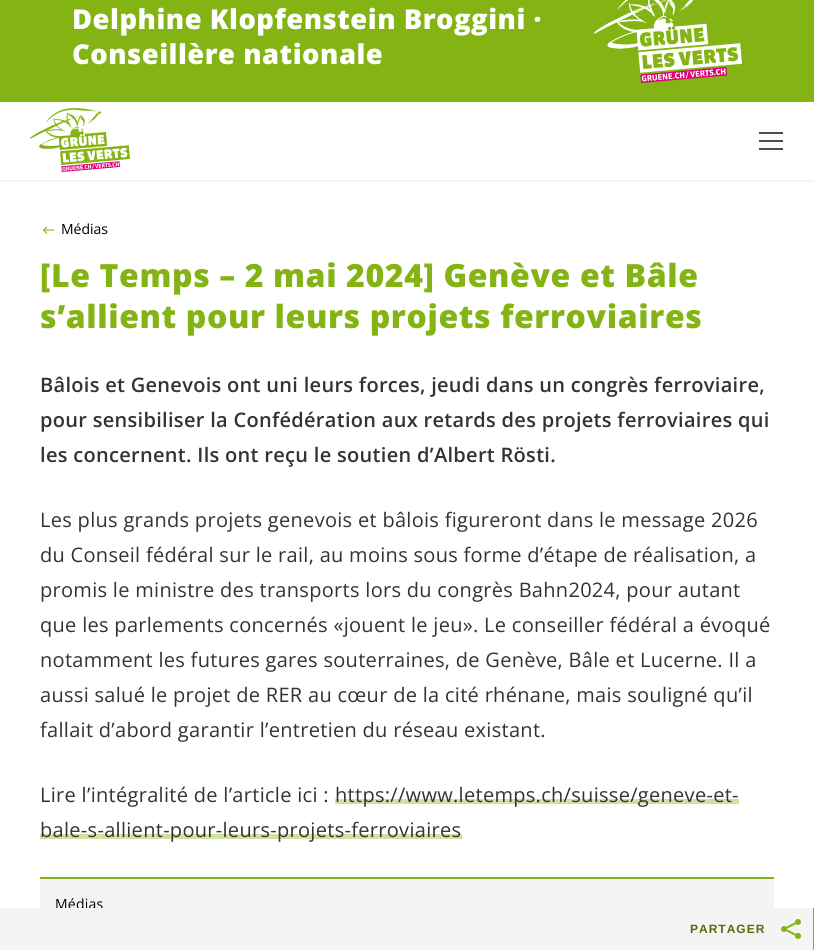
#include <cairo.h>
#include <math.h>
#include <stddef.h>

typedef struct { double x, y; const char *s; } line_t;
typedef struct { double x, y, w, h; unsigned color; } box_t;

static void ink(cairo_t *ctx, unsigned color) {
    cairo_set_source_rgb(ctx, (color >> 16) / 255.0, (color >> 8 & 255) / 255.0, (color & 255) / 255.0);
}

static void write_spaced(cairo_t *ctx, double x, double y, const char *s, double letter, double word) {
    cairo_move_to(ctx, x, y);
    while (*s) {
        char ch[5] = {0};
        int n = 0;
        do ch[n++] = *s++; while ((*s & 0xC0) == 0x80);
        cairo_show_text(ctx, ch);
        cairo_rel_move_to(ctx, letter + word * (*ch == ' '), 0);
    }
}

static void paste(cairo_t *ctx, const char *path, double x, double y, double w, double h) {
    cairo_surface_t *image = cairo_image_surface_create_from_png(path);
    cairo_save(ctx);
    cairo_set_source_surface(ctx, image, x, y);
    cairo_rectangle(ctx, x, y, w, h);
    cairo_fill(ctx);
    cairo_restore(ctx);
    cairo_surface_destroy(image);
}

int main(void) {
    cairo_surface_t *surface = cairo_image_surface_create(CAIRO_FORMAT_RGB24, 814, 950);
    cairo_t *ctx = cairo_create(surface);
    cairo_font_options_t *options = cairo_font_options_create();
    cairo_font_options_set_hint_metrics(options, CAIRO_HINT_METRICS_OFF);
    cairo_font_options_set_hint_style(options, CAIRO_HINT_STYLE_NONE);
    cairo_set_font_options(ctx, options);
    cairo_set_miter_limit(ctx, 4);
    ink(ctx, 0xFFFFFF);
    cairo_paint(ctx);
    ink(ctx, 0x84B414);
    cairo_rectangle(ctx, 0, 0, 814, 102);
    cairo_fill(ctx);
    cairo_select_font_face(ctx, "Open Sans ExtraBold", CAIRO_FONT_SLANT_NORMAL, CAIRO_FONT_WEIGHT_NORMAL);
    cairo_set_font_size(ctx, 27.4);
    ink(ctx, 0xFFFFFF);
    write_spaced(ctx, 72, 29, "Delphine Klopfenstein Broggini ·", 0.5, 0);
    write_spaced(ctx, 72, 64, "Conseillère nationale", 0.5, 0);
    paste(ctx, "media/1.png", 594, 0, 148, 83);
    ink(ctx, 0xF4F4F4);
    cairo_rectangle(ctx, 0, 180, 814, 2);
    cairo_fill(ctx);
    paste(ctx, "media/2.png", 30, 108, 100, 64);
    {
        static const box_t items[] = {
            {759, 140, 24, 2, 0x4E4E4E},
            {759, 132, 24, 2, 0x4E4E4E},
            {759, 148, 24, 2, 0x4E4E4E},
        };
        for (size_t i = 0; i < sizeof items / sizeof *items; i++) {
            ink(ctx, items[i].color);
            cairo_rectangle(ctx, items[i].x, items[i].y, items[i].w, items[i].h);
            cairo_fill(ctx);
        }
    }
    cairo_new_path(ctx);
    cairo_move_to(ctx, 47, 233.5);
    cairo_line_to(ctx, 43.5, 230);
    cairo_line_to(ctx, 47, 227);
    cairo_move_to(ctx, 43.5, 230);
    cairo_line_to(ctx, 54, 230);
    ink(ctx, 0x84B414);
    cairo_set_line_width(ctx, 1.1);
    cairo_stroke(ctx);
    cairo_select_font_face(ctx, "Open Sans", CAIRO_FONT_SLANT_NORMAL, CAIRO_FONT_WEIGHT_NORMAL);
    cairo_set_font_size(ctx, 14);
    ink(ctx, 0x000000);
    cairo_move_to(ctx, 61, 234);
    cairo_show_text(ctx, "Médias");
    cairo_select_font_face(ctx, "Open Sans ExtraBold", CAIRO_FONT_SLANT_NORMAL, CAIRO_FONT_WEIGHT_NORMAL);
    cairo_set_font_size(ctx, 32);
    ink(ctx, 0x84B414);
    write_spaced(ctx, 40, 287, "[Le Temps – 2 mai 2024] Genève et Bâle", 0.6, 0);
    write_spaced(ctx, 40, 328, "s’allient pour leurs projets ferroviaires", 0.6, 0);
    cairo_select_font_face(ctx, "Open Sans SemiBold", CAIRO_FONT_SLANT_NORMAL, CAIRO_FONT_WEIGHT_NORMAL);
    cairo_set_font_size(ctx, 20);
    ink(ctx, 0x333333);
    {
        static const line_t items[] = {
            {40, 392, "Bâlois et Genevois ont uni leurs forces, jeudi dans un congrès ferroviaire,"},
            {40, 427, "pour sensibiliser la Confédération aux retards des projets ferroviaires qui"},
            {40, 462, "les concernent. Ils ont reçu le soutien d’Albert Rösti."},
        };
        for (size_t i = 0; i < sizeof items / sizeof *items; i++) {
            write_spaced(ctx, items[i].x, items[i].y, items[i].s, 0.3, 0);
        }
    }
    cairo_select_font_face(ctx, "Open Sans", CAIRO_FONT_SLANT_NORMAL, CAIRO_FONT_WEIGHT_NORMAL);
    {
        static const line_t items[] = {
            {40, 527, "Les plus grands projets genevois et bâlois figureront dans le message 2026"},
            {40, 562, "du Conseil fédéral sur le rail, au moins sous forme d’étape de réalisation, a"},
            {40, 597, "promis le ministre des transports lors du congrès Bahn2024, pour autant"},
            {40, 632, "que les parlements concernés «jouent le jeu». Le conseiller fédéral a évoqué"},
            {40, 667, "notamment les futures gares souterraines, de Genève, Bâle et Lucerne. Il a"},
            {40, 702, "aussi salué le projet de RER au cœur de la cité rhénane, mais souligné qu’il"},
            {40, 737, "fallait d’abord garantir l’entretien du réseau existant."},
            {40, 802, "Lire l’intégralité de l’article ici :"},
        };
        for (size_t i = 0; i < sizeof items / sizeof *items; i++) {
            write_spaced(ctx, items[i].x, items[i].y, items[i].s, 0.3, 0);
        }
    }
    ink(ctx, 0xCEE1A1);
    cairo_rectangle(ctx, 335, 799, 404, 5);
    cairo_fill(ctx);
    ink(ctx, 0x333333);
    write_spaced(ctx, 335, 802, "https://www.letemps.ch/suisse/geneve-et-", 0.3, 0);
    ink(ctx, 0xCEE1A1);
    cairo_rectangle(ctx, 40, 834, 422, 5);
    cairo_fill(ctx);
    ink(ctx, 0x333333);
    write_spaced(ctx, 40, 837, "bale-s-allient-pour-leurs-projets-ferroviaires", 0.3, 0);
    ink(ctx, 0xF4F4F4);
    cairo_rectangle(ctx, 40, 879, 734, 29);
    cairo_fill(ctx);
    ink(ctx, 0x84B414);
    cairo_rectangle(ctx, 40, 877, 734, 2);
    cairo_fill(ctx);
    cairo_set_font_size(ctx, 14);
    ink(ctx, 0x000000);
    write_spaced(ctx, 55, 909, "Médias", 0.25, 0);
    ink(ctx, 0xF4F4F4);
    cairo_rectangle(ctx, 0, 908, 813, 42);
    cairo_fill(ctx);
    ink(ctx, 0x84B414);
    cairo_rectangle(ctx, 813, 908, 1, 42);
    cairo_fill(ctx);
    cairo_select_font_face(ctx, "Liberation Sans", CAIRO_FONT_SLANT_NORMAL, CAIRO_FONT_WEIGHT_BOLD);
    cairo_set_font_size(ctx, 12);
    ink(ctx, 0x516F0A);
    write_spaced(ctx, 690, 933, "PARTAGER", 1, 0);
    paste(ctx, "media/3.png", 781, 919, 20, 20);
    cairo_surface_write_to_png(surface, "image.png");
    cairo_font_options_destroy(options);
    cairo_destroy(ctx);
    cairo_surface_destroy(surface);
    return 0;
}
